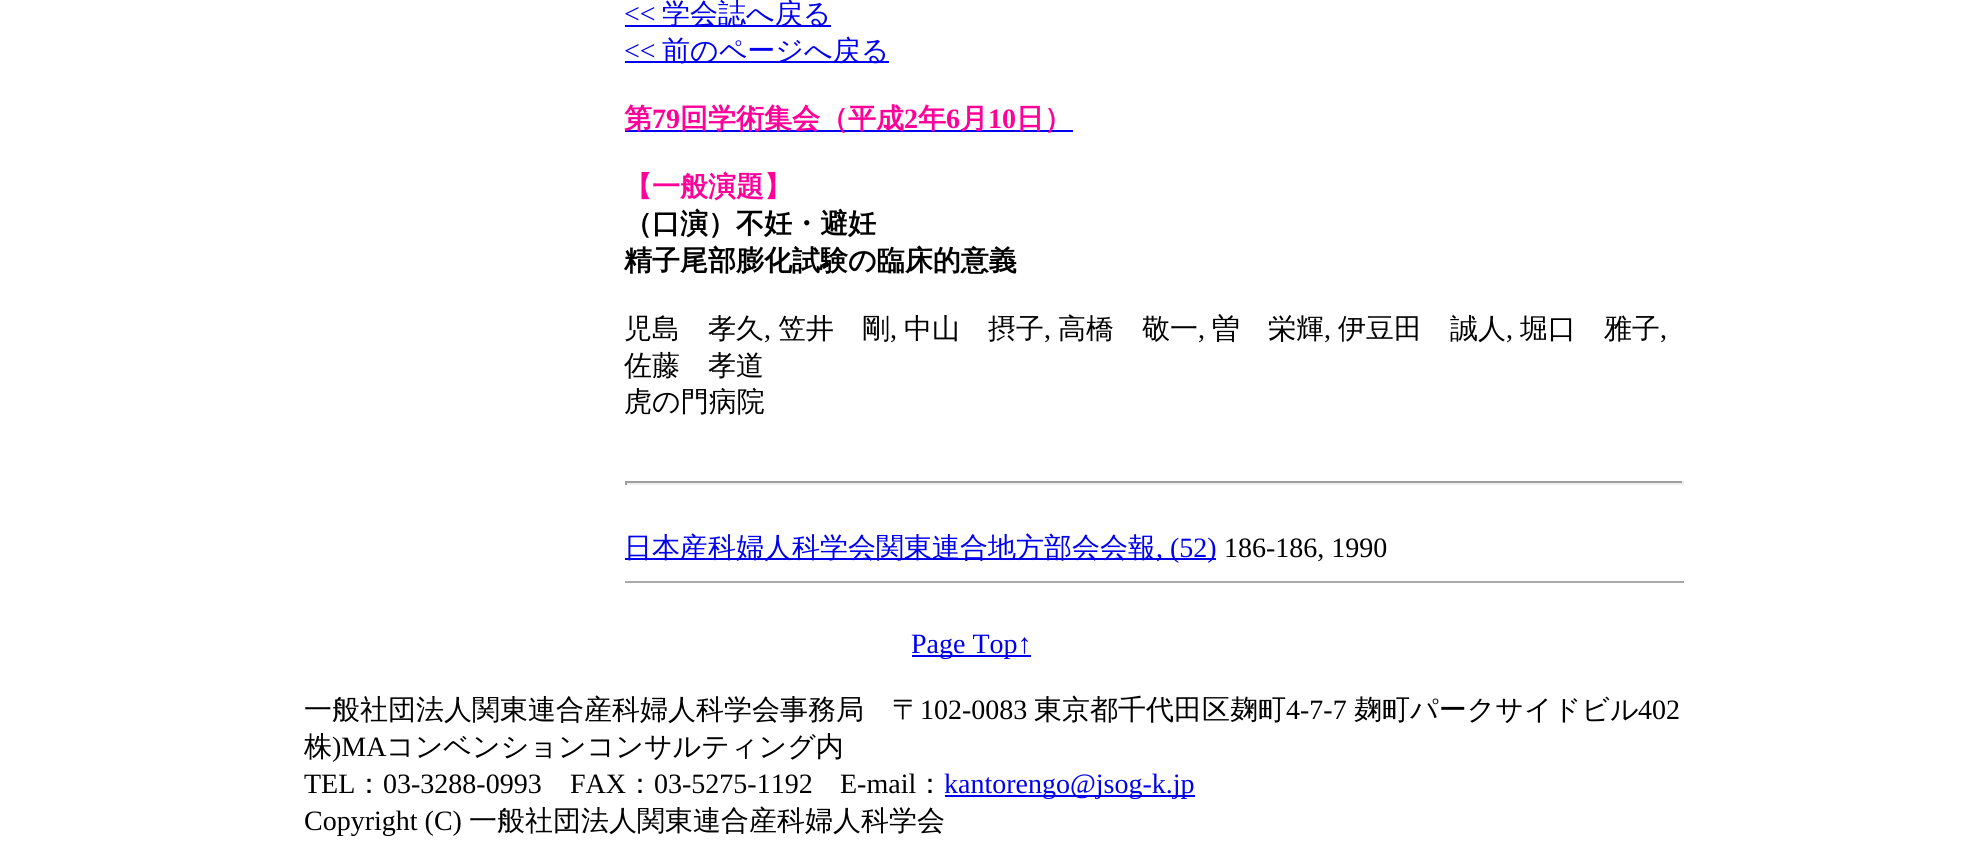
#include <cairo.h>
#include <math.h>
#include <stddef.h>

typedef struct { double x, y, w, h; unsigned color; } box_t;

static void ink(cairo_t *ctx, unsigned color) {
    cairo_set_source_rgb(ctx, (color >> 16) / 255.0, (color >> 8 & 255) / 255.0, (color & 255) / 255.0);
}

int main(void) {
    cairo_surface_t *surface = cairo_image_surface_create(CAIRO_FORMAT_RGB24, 1986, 848);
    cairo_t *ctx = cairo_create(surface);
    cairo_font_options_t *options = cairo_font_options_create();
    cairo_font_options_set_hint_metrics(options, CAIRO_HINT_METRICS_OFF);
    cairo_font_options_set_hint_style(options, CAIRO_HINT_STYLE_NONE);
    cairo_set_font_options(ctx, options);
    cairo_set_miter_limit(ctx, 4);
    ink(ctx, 0xFFFFFF);
    cairo_paint(ctx);
    cairo_select_font_face(ctx, "Liberation Serif", CAIRO_FONT_SLANT_NORMAL, CAIRO_FONT_WEIGHT_NORMAL);
    cairo_set_font_size(ctx, 28);
    ink(ctx, 0x0000EE);
    cairo_move_to(ctx, 624, 23);
    cairo_show_text(ctx, "<<");
    cairo_rectangle(ctx, 625, 25, 206, 2);
    cairo_fill(ctx);
    cairo_select_font_face(ctx, "WenQuanYi Zen Hei Medium", CAIRO_FONT_SLANT_NORMAL, CAIRO_FONT_WEIGHT_NORMAL);
    cairo_move_to(ctx, 662, 23);
    cairo_show_text(ctx, "学会誌へ戻る");
    cairo_select_font_face(ctx, "Liberation Serif", CAIRO_FONT_SLANT_NORMAL, CAIRO_FONT_WEIGHT_NORMAL);
    cairo_move_to(ctx, 624, 60);
    cairo_show_text(ctx, "<<");
    cairo_rectangle(ctx, 625, 61, 264, 2);
    cairo_fill(ctx);
    cairo_select_font_face(ctx, "WenQuanYi Zen Hei Medium", CAIRO_FONT_SLANT_NORMAL, CAIRO_FONT_WEIGHT_NORMAL);
    cairo_move_to(ctx, 662, 60);
    cairo_show_text(ctx, "前のページへ戻る");
    cairo_rectangle(ctx, 625, 130, 448, 2);
    cairo_fill(ctx);
    cairo_select_font_face(ctx, "WenQuanYi Zen Hei", CAIRO_FONT_SLANT_NORMAL, CAIRO_FONT_WEIGHT_BOLD);
    ink(ctx, 0xFF0099);
    cairo_move_to(ctx, 624, 128);
    cairo_show_text(ctx, "第");
    cairo_select_font_face(ctx, "Liberation Serif", CAIRO_FONT_SLANT_NORMAL, CAIRO_FONT_WEIGHT_BOLD);
    cairo_move_to(ctx, 652, 128);
    cairo_show_text(ctx, "79");
    cairo_select_font_face(ctx, "WenQuanYi Zen Hei", CAIRO_FONT_SLANT_NORMAL, CAIRO_FONT_WEIGHT_BOLD);
    cairo_move_to(ctx, 680, 128);
    cairo_show_text(ctx, "回学術集会（平成");
    cairo_select_font_face(ctx, "Liberation Serif", CAIRO_FONT_SLANT_NORMAL, CAIRO_FONT_WEIGHT_BOLD);
    cairo_move_to(ctx, 904, 128);
    cairo_show_text(ctx, "2");
    cairo_select_font_face(ctx, "WenQuanYi Zen Hei", CAIRO_FONT_SLANT_NORMAL, CAIRO_FONT_WEIGHT_BOLD);
    cairo_move_to(ctx, 918, 128);
    cairo_show_text(ctx, "年");
    cairo_select_font_face(ctx, "Liberation Serif", CAIRO_FONT_SLANT_NORMAL, CAIRO_FONT_WEIGHT_BOLD);
    cairo_move_to(ctx, 946, 128);
    cairo_show_text(ctx, "6");
    cairo_select_font_face(ctx, "WenQuanYi Zen Hei", CAIRO_FONT_SLANT_NORMAL, CAIRO_FONT_WEIGHT_BOLD);
    cairo_move_to(ctx, 960, 128);
    cairo_show_text(ctx, "月");
    cairo_select_font_face(ctx, "Liberation Serif", CAIRO_FONT_SLANT_NORMAL, CAIRO_FONT_WEIGHT_BOLD);
    cairo_move_to(ctx, 988, 128);
    cairo_show_text(ctx, "10");
    cairo_select_font_face(ctx, "WenQuanYi Zen Hei", CAIRO_FONT_SLANT_NORMAL, CAIRO_FONT_WEIGHT_BOLD);
    cairo_move_to(ctx, 1016, 128);
    cairo_show_text(ctx, "日）");
    cairo_move_to(ctx, 624, 196);
    cairo_show_text(ctx, "【一般演題】");
    ink(ctx, 0x000000);
    cairo_move_to(ctx, 624, 233);
    cairo_show_text(ctx, "（口演）不妊・避妊");
    cairo_move_to(ctx, 624, 270);
    cairo_show_text(ctx, "精子尾部膨化試験の臨床的意義");
    cairo_select_font_face(ctx, "WenQuanYi Zen Hei Medium", CAIRO_FONT_SLANT_NORMAL, CAIRO_FONT_WEIGHT_NORMAL);
    cairo_move_to(ctx, 624, 338);
    cairo_show_text(ctx, "児島　孝久");
    cairo_select_font_face(ctx, "Liberation Serif", CAIRO_FONT_SLANT_NORMAL, CAIRO_FONT_WEIGHT_NORMAL);
    cairo_move_to(ctx, 764, 338);
    cairo_show_text(ctx, ",");
    cairo_select_font_face(ctx, "WenQuanYi Zen Hei Medium", CAIRO_FONT_SLANT_NORMAL, CAIRO_FONT_WEIGHT_NORMAL);
    cairo_move_to(ctx, 778, 338);
    cairo_show_text(ctx, "笠井　剛");
    cairo_select_font_face(ctx, "Liberation Serif", CAIRO_FONT_SLANT_NORMAL, CAIRO_FONT_WEIGHT_NORMAL);
    cairo_move_to(ctx, 890, 338);
    cairo_show_text(ctx, ",");
    cairo_select_font_face(ctx, "WenQuanYi Zen Hei Medium", CAIRO_FONT_SLANT_NORMAL, CAIRO_FONT_WEIGHT_NORMAL);
    cairo_move_to(ctx, 904, 338);
    cairo_show_text(ctx, "中山　摂子");
    cairo_select_font_face(ctx, "Liberation Serif", CAIRO_FONT_SLANT_NORMAL, CAIRO_FONT_WEIGHT_NORMAL);
    cairo_move_to(ctx, 1044, 338);
    cairo_show_text(ctx, ",");
    cairo_select_font_face(ctx, "WenQuanYi Zen Hei Medium", CAIRO_FONT_SLANT_NORMAL, CAIRO_FONT_WEIGHT_NORMAL);
    cairo_move_to(ctx, 1058, 338);
    cairo_show_text(ctx, "高橋　敬一");
    cairo_select_font_face(ctx, "Liberation Serif", CAIRO_FONT_SLANT_NORMAL, CAIRO_FONT_WEIGHT_NORMAL);
    cairo_move_to(ctx, 1198, 338);
    cairo_show_text(ctx, ",");
    cairo_select_font_face(ctx, "WenQuanYi Zen Hei Medium", CAIRO_FONT_SLANT_NORMAL, CAIRO_FONT_WEIGHT_NORMAL);
    cairo_move_to(ctx, 1212, 338);
    cairo_show_text(ctx, "曽　栄輝");
    cairo_select_font_face(ctx, "Liberation Serif", CAIRO_FONT_SLANT_NORMAL, CAIRO_FONT_WEIGHT_NORMAL);
    cairo_move_to(ctx, 1324, 338);
    cairo_show_text(ctx, ",");
    cairo_select_font_face(ctx, "WenQuanYi Zen Hei Medium", CAIRO_FONT_SLANT_NORMAL, CAIRO_FONT_WEIGHT_NORMAL);
    cairo_move_to(ctx, 1338, 338);
    cairo_show_text(ctx, "伊豆田　誠人");
    cairo_select_font_face(ctx, "Liberation Serif", CAIRO_FONT_SLANT_NORMAL, CAIRO_FONT_WEIGHT_NORMAL);
    cairo_move_to(ctx, 1506, 338);
    cairo_show_text(ctx, ",");
    cairo_select_font_face(ctx, "WenQuanYi Zen Hei Medium", CAIRO_FONT_SLANT_NORMAL, CAIRO_FONT_WEIGHT_NORMAL);
    cairo_move_to(ctx, 1520, 338);
    cairo_show_text(ctx, "堀口　雅子");
    cairo_select_font_face(ctx, "Liberation Serif", CAIRO_FONT_SLANT_NORMAL, CAIRO_FONT_WEIGHT_NORMAL);
    cairo_move_to(ctx, 1660, 338);
    cairo_show_text(ctx, ",");
    cairo_select_font_face(ctx, "WenQuanYi Zen Hei Medium", CAIRO_FONT_SLANT_NORMAL, CAIRO_FONT_WEIGHT_NORMAL);
    cairo_move_to(ctx, 624, 375);
    cairo_show_text(ctx, "佐藤　孝道");
    cairo_move_to(ctx, 624, 411);
    cairo_show_text(ctx, "虎の門病院");
    {
        static const box_t items[] = {
            {625, 481, 1059, 2, 0x9F9F9F},
            {1682, 481, 2, 4, 0xEEEEEE},
            {625, 483, 1059, 2, 0xEEEEEE},
            {625, 481, 2, 4, 0x9F9F9F},
            {625, 558, 591, 2, 0x0000EE},
        };
        for (size_t i = 0; i < sizeof items / sizeof *items; i++) {
            ink(ctx, items[i].color);
            cairo_rectangle(ctx, items[i].x, items[i].y, items[i].w, items[i].h);
            cairo_fill(ctx);
        }
    }
    cairo_move_to(ctx, 624, 557);
    cairo_show_text(ctx, "日本産科婦人科学会関東連合地方部会会報");
    cairo_select_font_face(ctx, "Liberation Serif", CAIRO_FONT_SLANT_NORMAL, CAIRO_FONT_WEIGHT_NORMAL);
    cairo_move_to(ctx, 1156, 557);
    cairo_show_text(ctx, ", (52)");
    ink(ctx, 0x000000);
    cairo_move_to(ctx, 1224, 557);
    cairo_show_text(ctx, "186-186, 1990");
    ink(ctx, 0xAAAAAA);
    cairo_rectangle(ctx, 625, 581, 1059, 2);
    cairo_fill(ctx);
    ink(ctx, 0x0000EE);
    cairo_rectangle(ctx, 912, 655, 119, 2);
    cairo_fill(ctx);
    cairo_move_to(ctx, 911, 653);
    cairo_show_text(ctx, "Page Top↑");
    cairo_select_font_face(ctx, "WenQuanYi Zen Hei Medium", CAIRO_FONT_SLANT_NORMAL, CAIRO_FONT_WEIGHT_NORMAL);
    ink(ctx, 0x000000);
    cairo_move_to(ctx, 304, 719);
    cairo_show_text(ctx, "一般社団法人関東連合産科婦人科学会事務局　〒");
    cairo_select_font_face(ctx, "Liberation Serif", CAIRO_FONT_SLANT_NORMAL, CAIRO_FONT_WEIGHT_NORMAL);
    cairo_move_to(ctx, 920, 719);
    cairo_show_text(ctx, "102-0083");
    cairo_select_font_face(ctx, "WenQuanYi Zen Hei Medium", CAIRO_FONT_SLANT_NORMAL, CAIRO_FONT_WEIGHT_NORMAL);
    cairo_move_to(ctx, 1034, 719);
    cairo_show_text(ctx, "東京都千代田区麹町");
    cairo_select_font_face(ctx, "Liberation Serif", CAIRO_FONT_SLANT_NORMAL, CAIRO_FONT_WEIGHT_NORMAL);
    cairo_move_to(ctx, 1286, 719);
    cairo_show_text(ctx, "4-7-7");
    cairo_select_font_face(ctx, "WenQuanYi Zen Hei Medium", CAIRO_FONT_SLANT_NORMAL, CAIRO_FONT_WEIGHT_NORMAL);
    cairo_move_to(ctx, 1354, 719);
    cairo_show_text(ctx, "麹町パークサイドビル");
    cairo_select_font_face(ctx, "Liberation Serif", CAIRO_FONT_SLANT_NORMAL, CAIRO_FONT_WEIGHT_NORMAL);
    cairo_move_to(ctx, 1638, 719);
    cairo_show_text(ctx, "402");
    cairo_select_font_face(ctx, "WenQuanYi Zen Hei Medium", CAIRO_FONT_SLANT_NORMAL, CAIRO_FONT_WEIGHT_NORMAL);
    cairo_move_to(ctx, 304, 756);
    cairo_show_text(ctx, "株");
    cairo_select_font_face(ctx, "Liberation Serif", CAIRO_FONT_SLANT_NORMAL, CAIRO_FONT_WEIGHT_NORMAL);
    cairo_move_to(ctx, 332, 756);
    cairo_show_text(ctx, ")MA");
    cairo_select_font_face(ctx, "WenQuanYi Zen Hei Medium", CAIRO_FONT_SLANT_NORMAL, CAIRO_FONT_WEIGHT_NORMAL);
    cairo_move_to(ctx, 386, 756);
    cairo_show_text(ctx, "コンベンションコンサルティング内");
    cairo_select_font_face(ctx, "Liberation Serif", CAIRO_FONT_SLANT_NORMAL, CAIRO_FONT_WEIGHT_NORMAL);
    cairo_move_to(ctx, 304, 793);
    cairo_show_text(ctx, "TEL");
    cairo_select_font_face(ctx, "WenQuanYi Zen Hei Medium", CAIRO_FONT_SLANT_NORMAL, CAIRO_FONT_WEIGHT_NORMAL);
    cairo_move_to(ctx, 355, 793);
    cairo_show_text(ctx, "：");
    cairo_select_font_face(ctx, "Liberation Serif", CAIRO_FONT_SLANT_NORMAL, CAIRO_FONT_WEIGHT_NORMAL);
    cairo_move_to(ctx, 383, 793);
    cairo_show_text(ctx, "03-3288-0993");
    cairo_move_to(ctx, 570, 793);
    cairo_show_text(ctx, "FAX");
    cairo_select_font_face(ctx, "WenQuanYi Zen Hei Medium", CAIRO_FONT_SLANT_NORMAL, CAIRO_FONT_WEIGHT_NORMAL);
    cairo_move_to(ctx, 626, 793);
    cairo_show_text(ctx, "：");
    cairo_select_font_face(ctx, "Liberation Serif", CAIRO_FONT_SLANT_NORMAL, CAIRO_FONT_WEIGHT_NORMAL);
    cairo_move_to(ctx, 654, 793);
    cairo_show_text(ctx, "03-5275-1192");
    cairo_move_to(ctx, 840, 793);
    cairo_show_text(ctx, "E-mail");
    cairo_select_font_face(ctx, "WenQuanYi Zen Hei Medium", CAIRO_FONT_SLANT_NORMAL, CAIRO_FONT_WEIGHT_NORMAL);
    cairo_move_to(ctx, 916, 793);
    cairo_show_text(ctx, "：");
    ink(ctx, 0x0000EE);
    cairo_rectangle(ctx, 945, 795, 250, 2);
    cairo_fill(ctx);
    cairo_select_font_face(ctx, "Liberation Serif", CAIRO_FONT_SLANT_NORMAL, CAIRO_FONT_WEIGHT_NORMAL);
    cairo_move_to(ctx, 944, 793);
    cairo_show_text(ctx, "kantorengo@jsog-k.jp");
    ink(ctx, 0x000000);
    cairo_move_to(ctx, 304, 830);
    cairo_show_text(ctx, "Copyright (C)");
    cairo_select_font_face(ctx, "WenQuanYi Zen Hei Medium", CAIRO_FONT_SLANT_NORMAL, CAIRO_FONT_WEIGHT_NORMAL);
    cairo_move_to(ctx, 469, 830);
    cairo_show_text(ctx, "一般社団法人関東連合産科婦人科学会");
    cairo_surface_write_to_png(surface, "image.png");
    cairo_font_options_destroy(options);
    cairo_destroy(ctx);
    cairo_surface_destroy(surface);
    return 0;
}
